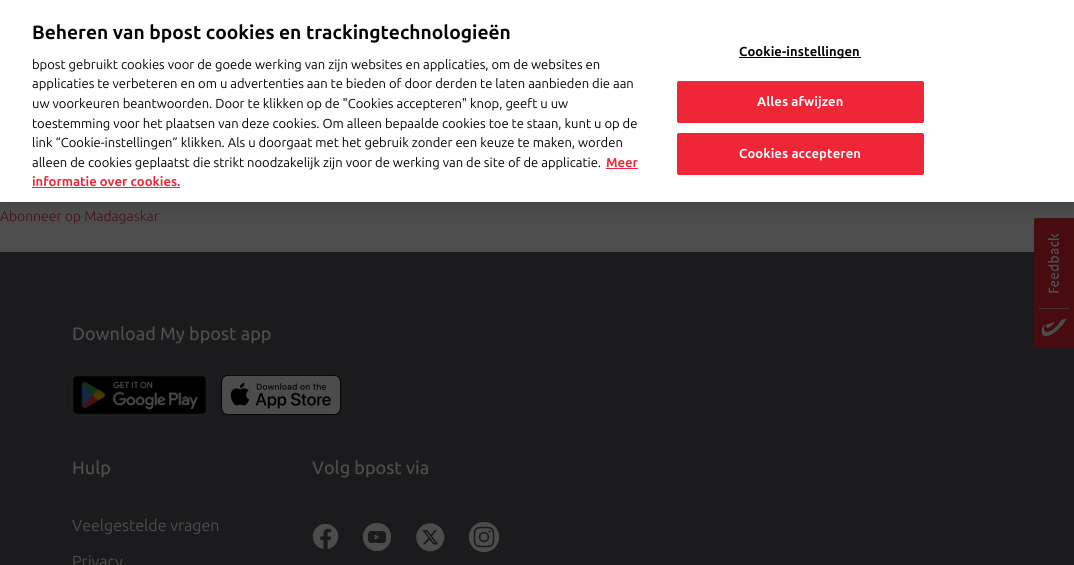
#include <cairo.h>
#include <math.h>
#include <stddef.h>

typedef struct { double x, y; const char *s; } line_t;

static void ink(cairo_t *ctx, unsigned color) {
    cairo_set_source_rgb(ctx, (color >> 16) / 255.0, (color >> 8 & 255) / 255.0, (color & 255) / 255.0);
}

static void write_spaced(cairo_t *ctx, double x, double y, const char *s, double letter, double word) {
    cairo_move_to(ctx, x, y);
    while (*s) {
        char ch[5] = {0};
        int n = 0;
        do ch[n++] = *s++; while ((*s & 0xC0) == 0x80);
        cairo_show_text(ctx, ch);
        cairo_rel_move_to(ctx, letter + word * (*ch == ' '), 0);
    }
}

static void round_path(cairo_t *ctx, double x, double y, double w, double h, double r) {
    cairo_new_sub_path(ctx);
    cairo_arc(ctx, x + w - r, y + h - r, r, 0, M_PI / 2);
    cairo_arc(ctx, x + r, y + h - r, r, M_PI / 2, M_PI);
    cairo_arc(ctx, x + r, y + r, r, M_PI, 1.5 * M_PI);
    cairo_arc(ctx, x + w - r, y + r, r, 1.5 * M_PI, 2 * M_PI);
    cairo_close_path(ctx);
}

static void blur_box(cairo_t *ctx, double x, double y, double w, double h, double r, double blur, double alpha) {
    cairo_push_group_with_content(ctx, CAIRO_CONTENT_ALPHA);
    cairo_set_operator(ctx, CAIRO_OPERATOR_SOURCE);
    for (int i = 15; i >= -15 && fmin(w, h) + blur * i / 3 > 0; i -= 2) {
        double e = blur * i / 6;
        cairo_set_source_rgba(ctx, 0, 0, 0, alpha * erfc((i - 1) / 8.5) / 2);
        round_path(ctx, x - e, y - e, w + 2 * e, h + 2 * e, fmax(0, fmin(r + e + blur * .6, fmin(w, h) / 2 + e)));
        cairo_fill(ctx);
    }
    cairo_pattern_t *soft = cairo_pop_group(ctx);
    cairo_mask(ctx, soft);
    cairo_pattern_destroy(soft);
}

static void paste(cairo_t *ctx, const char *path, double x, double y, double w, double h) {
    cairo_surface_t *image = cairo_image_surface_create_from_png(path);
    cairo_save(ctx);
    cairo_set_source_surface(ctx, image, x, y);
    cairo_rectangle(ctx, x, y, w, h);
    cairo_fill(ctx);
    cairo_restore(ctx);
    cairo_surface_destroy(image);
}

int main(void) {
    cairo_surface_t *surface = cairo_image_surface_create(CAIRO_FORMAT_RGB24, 1074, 565);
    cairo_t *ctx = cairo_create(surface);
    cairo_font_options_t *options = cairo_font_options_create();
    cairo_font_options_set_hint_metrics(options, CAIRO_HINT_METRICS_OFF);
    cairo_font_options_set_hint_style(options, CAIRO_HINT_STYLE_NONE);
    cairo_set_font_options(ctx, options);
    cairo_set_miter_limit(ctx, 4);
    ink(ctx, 0x4D4D4D);
    cairo_paint(ctx);
    ink(ctx, 0x1B1B1D);
    cairo_rectangle(ctx, 0, 252, 1074, 313);
    cairo_fill(ctx);
    paste(ctx, "media/7.png", 1034, 218, 40, 130);
    ink(ctx, 0x000000);
    blur_box(ctx, 0, 0, 1074, 202, 0, 9, 0.2);
    ink(ctx, 0xFFFFFF);
    cairo_rectangle(ctx, 0, 0, 1074, 202);
    cairo_fill(ctx);
    cairo_select_font_face(ctx, "Ubuntu", CAIRO_FONT_SLANT_NORMAL, CAIRO_FONT_WEIGHT_BOLD);
    cairo_set_font_size(ctx, 19.2);
    ink(ctx, 0x000000);
    cairo_move_to(ctx, 32, 39);
    cairo_show_text(ctx, "Beheren van bpost cookies en trackingtechnologieën");
    cairo_select_font_face(ctx, "Ubuntu", CAIRO_FONT_SLANT_NORMAL, CAIRO_FONT_WEIGHT_NORMAL);
    cairo_set_font_size(ctx, 13);
    {
        static const line_t items[] = {
            {32, 69, "bpost gebruikt cookies voor de goede werking van zijn websites en applicaties, om de websites en"},
            {32, 88, "applicaties te verbeteren en om u advertenties aan te bieden of door derden te laten aanbieden die aan"},
            {32, 108, "uw voorkeuren beantwoorden. Door te klikken op de \"Cookies accepteren\" knop, geeft u uw"},
            {32, 128, "toestemming voor het plaatsen van deze cookies. Om alleen bepaalde cookies toe te staan, kunt u op de"},
            {32, 147, "link “Cookie-instellingen” klikken. Als u doorgaat met het gebruik zonder een keuze te maken, worden"},
            {32, 167, "alleen de cookies geplaatst die strikt noodzakelijk zijn voor de werking van de site of de applicatie."},
        };
        for (size_t i = 0; i < sizeof items / sizeof *items; i++) {
            cairo_move_to(ctx, items[i].x, items[i].y);
            cairo_show_text(ctx, items[i].s);
        }
    }
    cairo_select_font_face(ctx, "Ubuntu", CAIRO_FONT_SLANT_NORMAL, CAIRO_FONT_WEIGHT_BOLD);
    ink(ctx, 0xEF2637);
    cairo_move_to(ctx, 606, 167);
    cairo_show_text(ctx, "Meer");
    cairo_rectangle(ctx, 606, 168, 32, 1);
    cairo_fill(ctx);
    cairo_move_to(ctx, 32, 186);
    cairo_show_text(ctx, "informatie over cookies.");
    cairo_rectangle(ctx, 32, 187, 148, 1);
    cairo_fill(ctx);
    ink(ctx, 0x000000);
    cairo_rectangle(ctx, 739, 57, 122, 1);
    cairo_fill(ctx);
    write_spaced(ctx, 739, 56, "Cookie-instellingen", 0.1, 0);
    ink(ctx, 0xEF2637);
    round_path(ctx, 677.5, 81.5, 246, 41, 1.5);
    cairo_fill_preserve(ctx);
    cairo_set_line_width(ctx, 1);
    cairo_stroke(ctx);
    ink(ctx, 0xFFFFFF);
    write_spaced(ctx, 757, 106, "Alles afwijzen", 0.1, 0);
    ink(ctx, 0xEF2637);
    round_path(ctx, 677.5, 133.5, 246, 41, 1.5);
    cairo_fill_preserve(ctx);
    cairo_stroke(ctx);
    ink(ctx, 0xFFFFFF);
    write_spaced(ctx, 739, 158, "Cookies accepteren", 0.1, 0);
    cairo_select_font_face(ctx, "Ubuntu Light", CAIRO_FONT_SLANT_NORMAL, CAIRO_FONT_WEIGHT_NORMAL);
    cairo_set_font_size(ctx, 14);
    ink(ctx, 0x480B11);
    cairo_move_to(ctx, 0, 221);
    cairo_show_text(ctx, "Abonneer op Madagaskar");
    cairo_select_font_face(ctx, "Ubuntu Medium", CAIRO_FONT_SLANT_NORMAL, CAIRO_FONT_WEIGHT_NORMAL);
    cairo_set_font_size(ctx, 18);
    ink(ctx, 0x4D4D4D);
    cairo_move_to(ctx, 72, 340);
    cairo_show_text(ctx, "Download My bpost app");
    paste(ctx, "media/1.png", 71, 374, 137, 42);
    paste(ctx, "media/2.png", 221, 375, 120, 40);
    cairo_move_to(ctx, 72, 474);
    cairo_show_text(ctx, "Hulp");
    cairo_select_font_face(ctx, "Ubuntu", CAIRO_FONT_SLANT_NORMAL, CAIRO_FONT_WEIGHT_NORMAL);
    cairo_set_font_size(ctx, 16);
    cairo_move_to(ctx, 72, 531);
    cairo_show_text(ctx, "Veelgestelde vragen");
    cairo_move_to(ctx, 72, 567);
    cairo_show_text(ctx, "Privacy");
    cairo_select_font_face(ctx, "Ubuntu Medium", CAIRO_FONT_SLANT_NORMAL, CAIRO_FONT_WEIGHT_NORMAL);
    cairo_set_font_size(ctx, 18);
    cairo_move_to(ctx, 312, 474);
    cairo_show_text(ctx, "Volg bpost via");
    paste(ctx, "media/3.png", 312, 524, 27, 25);
    paste(ctx, "media/4.png", 363, 523, 28, 28);
    paste(ctx, "media/5.png", 416, 523, 29, 29);
    paste(ctx, "media/6.png", 469, 522, 30, 30);
    cairo_surface_write_to_png(surface, "image.png");
    cairo_font_options_destroy(options);
    cairo_destroy(ctx);
    cairo_surface_destroy(surface);
    return 0;
}
